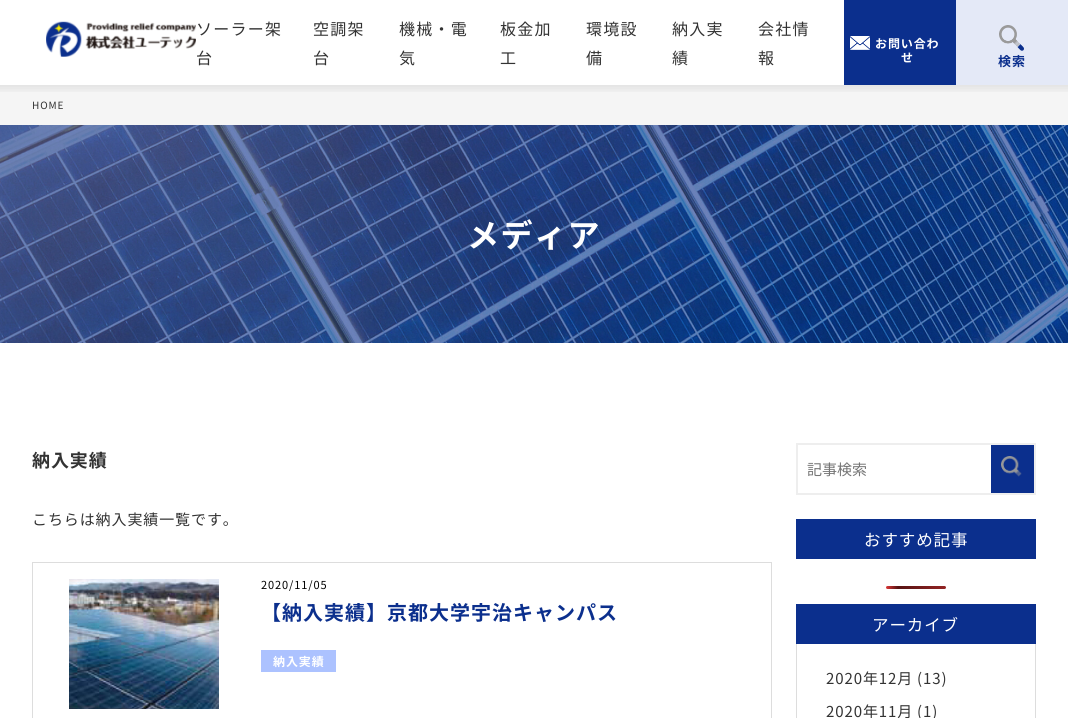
#include <cairo.h>
#include <math.h>
#include <stddef.h>

typedef struct { double x, y; const char *s; } line_t;

static void ink(cairo_t *ctx, unsigned color) {
    cairo_set_source_rgb(ctx, (color >> 16) / 255.0, (color >> 8 & 255) / 255.0, (color & 255) / 255.0);
}

static void write_spaced(cairo_t *ctx, double x, double y, const char *s, double letter, double word) {
    cairo_move_to(ctx, x, y);
    while (*s) {
        char ch[5] = {0};
        int n = 0;
        do ch[n++] = *s++; while ((*s & 0xC0) == 0x80);
        cairo_show_text(ctx, ch);
        cairo_rel_move_to(ctx, letter + word * (*ch == ' '), 0);
    }
}

static void round_path(cairo_t *ctx, double x, double y, double w, double h, double r) {
    cairo_new_sub_path(ctx);
    cairo_arc(ctx, x + w - r, y + h - r, r, 0, M_PI / 2);
    cairo_arc(ctx, x + r, y + h - r, r, M_PI / 2, M_PI);
    cairo_arc(ctx, x + r, y + r, r, M_PI, 1.5 * M_PI);
    cairo_arc(ctx, x + w - r, y + r, r, 1.5 * M_PI, 2 * M_PI);
    cairo_close_path(ctx);
}

static void blur_box(cairo_t *ctx, double x, double y, double w, double h, double r, double blur, double alpha) {
    cairo_push_group_with_content(ctx, CAIRO_CONTENT_ALPHA);
    cairo_set_operator(ctx, CAIRO_OPERATOR_SOURCE);
    for (int i = 15; i >= -15 && fmin(w, h) + blur * i / 3 > 0; i -= 2) {
        double e = blur * i / 6;
        cairo_set_source_rgba(ctx, 0, 0, 0, alpha * erfc((i - 1) / 8.5) / 2);
        round_path(ctx, x - e, y - e, w + 2 * e, h + 2 * e, fmax(0, fmin(r + e + blur * .6, fmin(w, h) / 2 + e)));
        cairo_fill(ctx);
    }
    cairo_pattern_t *soft = cairo_pop_group(ctx);
    cairo_mask(ctx, soft);
    cairo_pattern_destroy(soft);
}

static void paste(cairo_t *ctx, const char *path, double x, double y, double w, double h) {
    cairo_surface_t *image = cairo_image_surface_create_from_png(path);
    cairo_save(ctx);
    cairo_set_source_surface(ctx, image, x, y);
    cairo_rectangle(ctx, x, y, w, h);
    cairo_fill(ctx);
    cairo_restore(ctx);
    cairo_surface_destroy(image);
}

int main(void) {
    cairo_surface_t *surface = cairo_image_surface_create(CAIRO_FORMAT_RGB24, 1068, 718);
    cairo_t *ctx = cairo_create(surface);
    cairo_font_options_t *options = cairo_font_options_create();
    cairo_font_options_set_hint_metrics(options, CAIRO_HINT_METRICS_OFF);
    cairo_font_options_set_hint_style(options, CAIRO_HINT_STYLE_NONE);
    cairo_set_font_options(ctx, options);
    cairo_set_miter_limit(ctx, 4);
    cairo_pattern_t *gradient;
    ink(ctx, 0xFFFFFF);
    cairo_paint(ctx);
    ink(ctx, 0xF5F5F5);
    cairo_rectangle(ctx, 0, 85, 1068, 40);
    cairo_fill(ctx);
    cairo_save(ctx);
    cairo_rectangle(ctx, 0, 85, 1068, 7);
    cairo_clip(ctx);
    ink(ctx, 0x000000);
    blur_box(ctx, -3, -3, 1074, 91, 0, 5, 0.1);
    cairo_restore(ctx);
    paste(ctx, "media/1.png", 46, 21, 150, 36);
    cairo_select_font_face(ctx, "Noto Sans JP", CAIRO_FONT_SLANT_NORMAL, CAIRO_FONT_WEIGHT_NORMAL);
    cairo_set_font_size(ctx, 16);
    ink(ctx, 0x333333);
    {
        static const line_t items[] = {
            {196, 35, "ソーラー架"},
            {196, 64, "台"},
            {313, 35, "空調架"},
            {313, 64, "台"},
            {399, 35, "機械・電"},
            {399, 64, "気"},
            {500, 35, "板金加"},
            {500, 64, "工"},
            {586, 35, "環境設"},
            {586, 64, "備"},
            {672, 35, "納入実"},
            {672, 64, "績"},
            {758, 35, "会社情"},
            {758, 64, "報"},
        };
        for (size_t i = 0; i < sizeof items / sizeof *items; i++) {
            write_spaced(ctx, items[i].x, items[i].y, items[i].s, 1.25, 0);
        }
    }
    ink(ctx, 0x0B2F8D);
    cairo_rectangle(ctx, 844, 0, 112, 85);
    cairo_fill(ctx);
    paste(ctx, "media/2.png", 850, 36, 20, 14);
    cairo_select_font_face(ctx, "Noto Sans JP", CAIRO_FONT_SLANT_NORMAL, CAIRO_FONT_WEIGHT_BOLD);
    cairo_set_font_size(ctx, 12);
    ink(ctx, 0xFFFFFF);
    write_spaced(ctx, 875, 48, "お問い合わ", 0.9, 0);
    write_spaced(ctx, 901, 62, "せ", 0.9, 0);
    ink(ctx, 0xE4E9F7);
    cairo_rectangle(ctx, 956, 0, 112, 85);
    cairo_fill(ctx);
    paste(ctx, "media/3.png", 999, 25, 25, 26);
    cairo_set_font_size(ctx, 13);
    ink(ctx, 0x0B2F8D);
    write_spaced(ctx, 998, 66, "検索", 0.9, 0);
    cairo_select_font_face(ctx, "Noto Sans JP", CAIRO_FONT_SLANT_NORMAL, CAIRO_FONT_WEIGHT_NORMAL);
    cairo_set_font_size(ctx, 10);
    ink(ctx, 0x333333);
    write_spaced(ctx, 32, 109, "HOME", 0.9, 0);
    paste(ctx, "media/4.png", 0, 125, 1068, 218);
    cairo_select_font_face(ctx, "Noto Sans JP", CAIRO_FONT_SLANT_NORMAL, CAIRO_FONT_WEIGHT_BOLD);
    cairo_set_font_size(ctx, 32);
    ink(ctx, 0xFFFFFF);
    write_spaced(ctx, 467, 247, "メディア", 1.5, 0);
    cairo_set_font_size(ctx, 18);
    ink(ctx, 0x333333);
    write_spaced(ctx, 32, 467, "納入実績", 0.9, 0);
    cairo_select_font_face(ctx, "Noto Sans JP", CAIRO_FONT_SLANT_NORMAL, CAIRO_FONT_WEIGHT_NORMAL);
    cairo_set_font_size(ctx, 15);
    write_spaced(ctx, 32, 525, "こちらは納入実績一覧です。", 0.9, 0);
    cairo_rectangle(ctx, 32.5, 562.5, 739, 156);
    ink(ctx, 0xDDDDDD);
    cairo_set_line_width(ctx, 1);
    cairo_stroke(ctx);
    paste(ctx, "media/5.png", 69, 579, 150, 130);
    cairo_set_font_size(ctx, 11);
    ink(ctx, 0x000000);
    write_spaced(ctx, 261, 589, "2020/11/05", 0.9, 0);
    cairo_select_font_face(ctx, "Noto Sans JP", CAIRO_FONT_SLANT_NORMAL, CAIRO_FONT_WEIGHT_BOLD);
    cairo_set_font_size(ctx, 20);
    ink(ctx, 0x0B2F8D);
    write_spaced(ctx, 261, 620, "【納入実績】京都大学宇治キャンパス", 1, 0);
    ink(ctx, 0xACC2FF);
    cairo_rectangle(ctx, 261, 650, 75, 22);
    cairo_fill(ctx);
    cairo_set_font_size(ctx, 12);
    ink(ctx, 0xFFFFFF);
    write_spaced(ctx, 273, 666, "納入実績", 0.9, 0);
    cairo_rectangle(ctx, 797, 444, 238, 50);
    ink(ctx, 0xEEEEEE);
    cairo_set_line_width(ctx, 2);
    cairo_stroke(ctx);
    cairo_select_font_face(ctx, "Noto Sans JP", CAIRO_FONT_SLANT_NORMAL, CAIRO_FONT_WEIGHT_NORMAL);
    cairo_set_font_size(ctx, 15);
    ink(ctx, 0x757575);
    cairo_move_to(ctx, 807, 475);
    cairo_show_text(ctx, "記事検索");
    ink(ctx, 0x0B2F8D);
    cairo_rectangle(ctx, 991, 445, 43, 48);
    cairo_fill(ctx);
    paste(ctx, "media/6.png", 1001, 456, 21, 21);
    cairo_rectangle(ctx, 796, 519, 240, 40);
    cairo_fill(ctx);
    cairo_set_font_size(ctx, 16.5);
    ink(ctx, 0xFFFFFF);
    write_spaced(ctx, 864, 546, "おすすめ記事", 0.9, 0);
    gradient = cairo_pattern_create_linear(886, 588, 1006, 588);
    cairo_pattern_add_color_stop_rgba(gradient, 0, 0.867, 0.216, 0.216, 1);
    cairo_pattern_add_color_stop_rgba(gradient, 0.1, 0.341, 0.075, 0.075, 1);
    cairo_pattern_add_color_stop_rgba(gradient, 1, 0.867, 0.216, 0.216, 1);
    cairo_set_source(ctx, gradient);
    cairo_pattern_destroy(gradient);
    round_path(ctx, 886, 586, 60, 3, 1.5);
    cairo_fill(ctx);
    ink(ctx, 0x0B2F8D);
    cairo_rectangle(ctx, 796, 604, 240, 40);
    cairo_fill(ctx);
    ink(ctx, 0xFFFFFF);
    write_spaced(ctx, 872, 631, "アーカイブ", 0.9, 0);
    ink(ctx, 0xDDDDDD);
    cairo_rectangle(ctx, 1035, 644, 1, 74);
    cairo_fill(ctx);
    cairo_rectangle(ctx, 796, 644, 1, 74);
    cairo_fill(ctx);
    cairo_set_font_size(ctx, 15);
    ink(ctx, 0x333333);
    {
        static const line_t items[] = {
            {826, 684, "2020年12月"},
            {917, 684, "(13)"},
            {826, 717, "2020年11月"},
            {917, 717, "(1)"},
        };
        for (size_t i = 0; i < sizeof items / sizeof *items; i++) {
            write_spaced(ctx, items[i].x, items[i].y, items[i].s, 0.9, 0);
        }
    }
    cairo_surface_write_to_png(surface, "image.png");
    cairo_font_options_destroy(options);
    cairo_destroy(ctx);
    cairo_surface_destroy(surface);
    return 0;
}
